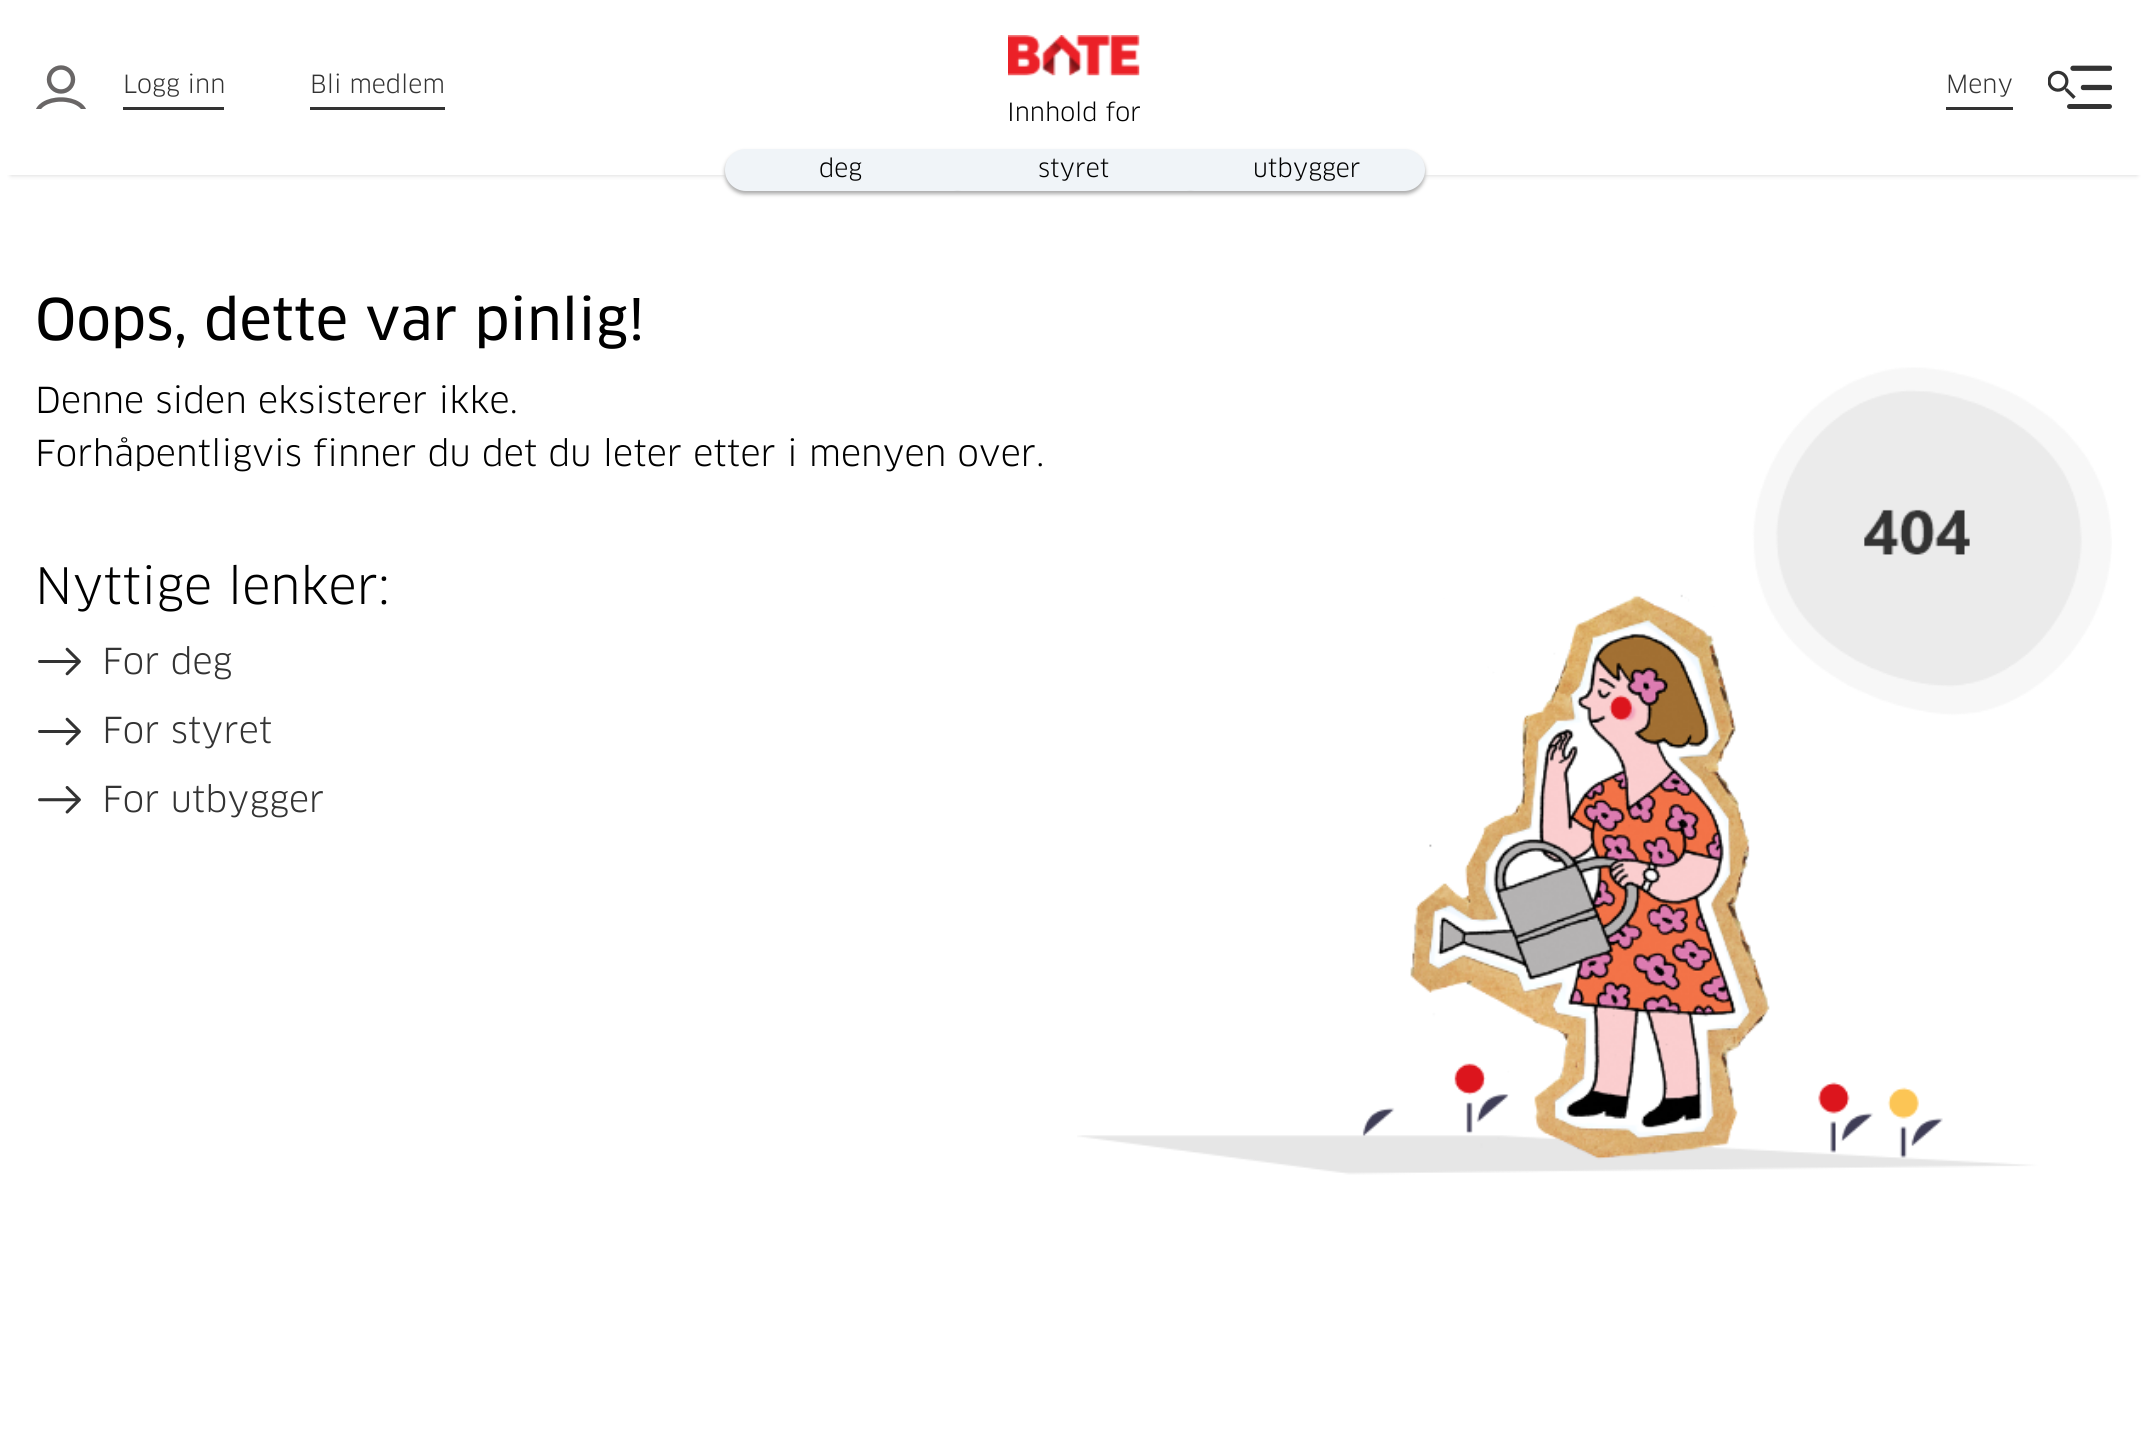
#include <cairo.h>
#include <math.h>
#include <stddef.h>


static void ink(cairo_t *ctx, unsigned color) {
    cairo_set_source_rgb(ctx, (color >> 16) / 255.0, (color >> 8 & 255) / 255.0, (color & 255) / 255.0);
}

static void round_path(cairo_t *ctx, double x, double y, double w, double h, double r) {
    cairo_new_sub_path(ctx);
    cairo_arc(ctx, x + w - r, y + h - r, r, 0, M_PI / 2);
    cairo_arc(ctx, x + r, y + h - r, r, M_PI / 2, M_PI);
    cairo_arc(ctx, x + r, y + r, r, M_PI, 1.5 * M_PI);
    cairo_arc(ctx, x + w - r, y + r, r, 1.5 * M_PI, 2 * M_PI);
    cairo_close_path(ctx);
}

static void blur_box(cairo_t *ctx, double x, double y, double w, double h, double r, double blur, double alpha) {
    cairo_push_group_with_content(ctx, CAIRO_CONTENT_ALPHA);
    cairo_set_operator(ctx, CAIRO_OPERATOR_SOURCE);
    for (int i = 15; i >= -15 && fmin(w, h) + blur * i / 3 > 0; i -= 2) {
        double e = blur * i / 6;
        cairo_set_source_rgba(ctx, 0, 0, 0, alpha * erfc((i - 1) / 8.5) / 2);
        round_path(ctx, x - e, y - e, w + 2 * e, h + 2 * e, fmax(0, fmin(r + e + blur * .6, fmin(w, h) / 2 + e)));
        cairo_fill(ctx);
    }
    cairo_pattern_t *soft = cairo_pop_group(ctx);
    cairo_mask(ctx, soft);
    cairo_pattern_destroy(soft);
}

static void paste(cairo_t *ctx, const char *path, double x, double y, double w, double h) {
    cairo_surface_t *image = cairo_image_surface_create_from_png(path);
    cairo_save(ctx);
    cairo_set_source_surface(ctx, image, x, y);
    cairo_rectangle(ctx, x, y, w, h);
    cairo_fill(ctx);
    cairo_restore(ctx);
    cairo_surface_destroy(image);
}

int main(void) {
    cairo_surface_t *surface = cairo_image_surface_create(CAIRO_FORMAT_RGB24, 2146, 1439);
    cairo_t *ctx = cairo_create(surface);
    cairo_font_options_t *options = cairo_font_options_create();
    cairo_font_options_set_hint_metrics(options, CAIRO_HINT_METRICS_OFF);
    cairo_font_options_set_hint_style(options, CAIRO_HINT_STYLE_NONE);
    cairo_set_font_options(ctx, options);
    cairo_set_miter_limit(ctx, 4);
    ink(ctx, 0xFFFFFF);
    cairo_paint(ctx);
    cairo_arc(ctx, 61, 79.5, 12, 0, 2 * M_PI);
    ink(ctx, 0x696666);
    cairo_set_line_width(ctx, 4.4);
    cairo_stroke(ctx);
    cairo_save(ctx);
    cairo_rectangle(ctx, 35, 97, 53, 12);
    cairo_clip(ctx);
    cairo_new_path(ctx);
    cairo_move_to(ctx, 61, 99.5);
    cairo_curve_to(ctx, 74.5, 99.5, 85, 106, 85, 114);
    cairo_curve_to(ctx, 85, 122, 74.5, 128.5, 61, 128.5);
    cairo_curve_to(ctx, 47.5, 128.5, 37, 122, 37, 114);
    cairo_curve_to(ctx, 37, 106, 47.5, 99.5, 61, 99.5);
    cairo_close_path(ctx);
    cairo_stroke(ctx);
    cairo_restore(ctx);
    ink(ctx, 0x333333);
    cairo_rectangle(ctx, 123, 107, 101, 3);
    cairo_fill(ctx);
    cairo_select_font_face(ctx, "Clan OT", CAIRO_FONT_SLANT_NORMAL, CAIRO_FONT_WEIGHT_NORMAL);
    cairo_set_font_size(ctx, 24.5);
    cairo_move_to(ctx, 123, 93);
    cairo_show_text(ctx, "Logg inn");
    cairo_rectangle(ctx, 310, 107, 135, 3);
    cairo_fill(ctx);
    cairo_move_to(ctx, 310, 93);
    cairo_show_text(ctx, "Bli medlem");
    cairo_rectangle(ctx, 1946, 107, 67, 3);
    cairo_fill(ctx);
    cairo_move_to(ctx, 1946, 93);
    cairo_show_text(ctx, "Meny");
    paste(ctx, "media/1.png", 2048, 65, 64, 44);
    paste(ctx, "media/2.png", 1008, 35, 132, 41);
    ink(ctx, 0x000000);
    cairo_move_to(ctx, 1007, 121);
    cairo_show_text(ctx, "Innhold for");
    ink(ctx, 0xAAAAAA);
    blur_box(ctx, 725, 152, 700, 42, 21, 2, 1);
    cairo_save(ctx);
    cairo_rectangle(ctx, 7, 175, 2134, 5);
    cairo_clip(ctx);
    ink(ctx, 0xD1D1D1);
    blur_box(ctx, 11, 161, 2126, 14, 0, 2.5, 1);
    cairo_restore(ctx);
    cairo_save(ctx);
    round_path(ctx, 725, 149, 700, 42, 21);
    cairo_clip(ctx);
    ink(ctx, 0xF0F4F8);
    round_path(ctx, 707, 149, 268, 42, 21);
    cairo_fill(ctx);
    cairo_restore(ctx);
    ink(ctx, 0x000000);
    cairo_move_to(ctx, 819, 177);
    cairo_show_text(ctx, "deg");
    ink(ctx, 0xF0F4F8);
    round_path(ctx, 940, 149, 268, 42, 21);
    cairo_fill(ctx);
    ink(ctx, 0x000000);
    cairo_move_to(ctx, 1038, 177);
    cairo_show_text(ctx, "styret");
    cairo_save(ctx);
    round_path(ctx, 725, 149, 700, 42, 21);
    cairo_clip(ctx);
    ink(ctx, 0xF0F4F8);
    round_path(ctx, 1173, 149, 267, 42, 21);
    cairo_fill(ctx);
    cairo_restore(ctx);
    cairo_move_to(ctx, 1253, 177);
    cairo_show_text(ctx, "utbygger");
    cairo_select_font_face(ctx, "Clan OT Medium", CAIRO_FONT_SLANT_NORMAL, CAIRO_FONT_WEIGHT_NORMAL);
    cairo_set_font_size(ctx, 56);
    cairo_move_to(ctx, 35, 340);
    cairo_show_text(ctx, "Oops, dette var pinlig!");
    cairo_select_font_face(ctx, "Clan OT", CAIRO_FONT_SLANT_NORMAL, CAIRO_FONT_WEIGHT_NORMAL);
    cairo_set_font_size(ctx, 35);
    cairo_move_to(ctx, 35, 413);
    cairo_show_text(ctx, "Denne siden eksisterer ikke.");
    cairo_move_to(ctx, 35, 466);
    cairo_show_text(ctx, "Forhåpentligvis finner du det du leter etter i menyen over.");
    cairo_set_font_size(ctx, 49);
    cairo_move_to(ctx, 35, 604);
    cairo_show_text(ctx, "Nyttige lenker:");
    paste(ctx, "media/3.png", 38, 647, 43, 29);
    cairo_set_font_size(ctx, 35);
    ink(ctx, 0x333333);
    cairo_move_to(ctx, 102, 674);
    cairo_show_text(ctx, "For deg");
    paste(ctx, "media/3.png", 38, 717, 43, 29);
    cairo_move_to(ctx, 102, 743);
    cairo_show_text(ctx, "For styret");
    paste(ctx, "media/4.png", 38, 786, 43, 28);
    cairo_move_to(ctx, 102, 812);
    cairo_show_text(ctx, "For utbygger");
    paste(ctx, "media/5.png", 1077, 367, 1035, 808);
    cairo_surface_write_to_png(surface, "image.png");
    cairo_font_options_destroy(options);
    cairo_destroy(ctx);
    cairo_surface_destroy(surface);
    return 0;
}
